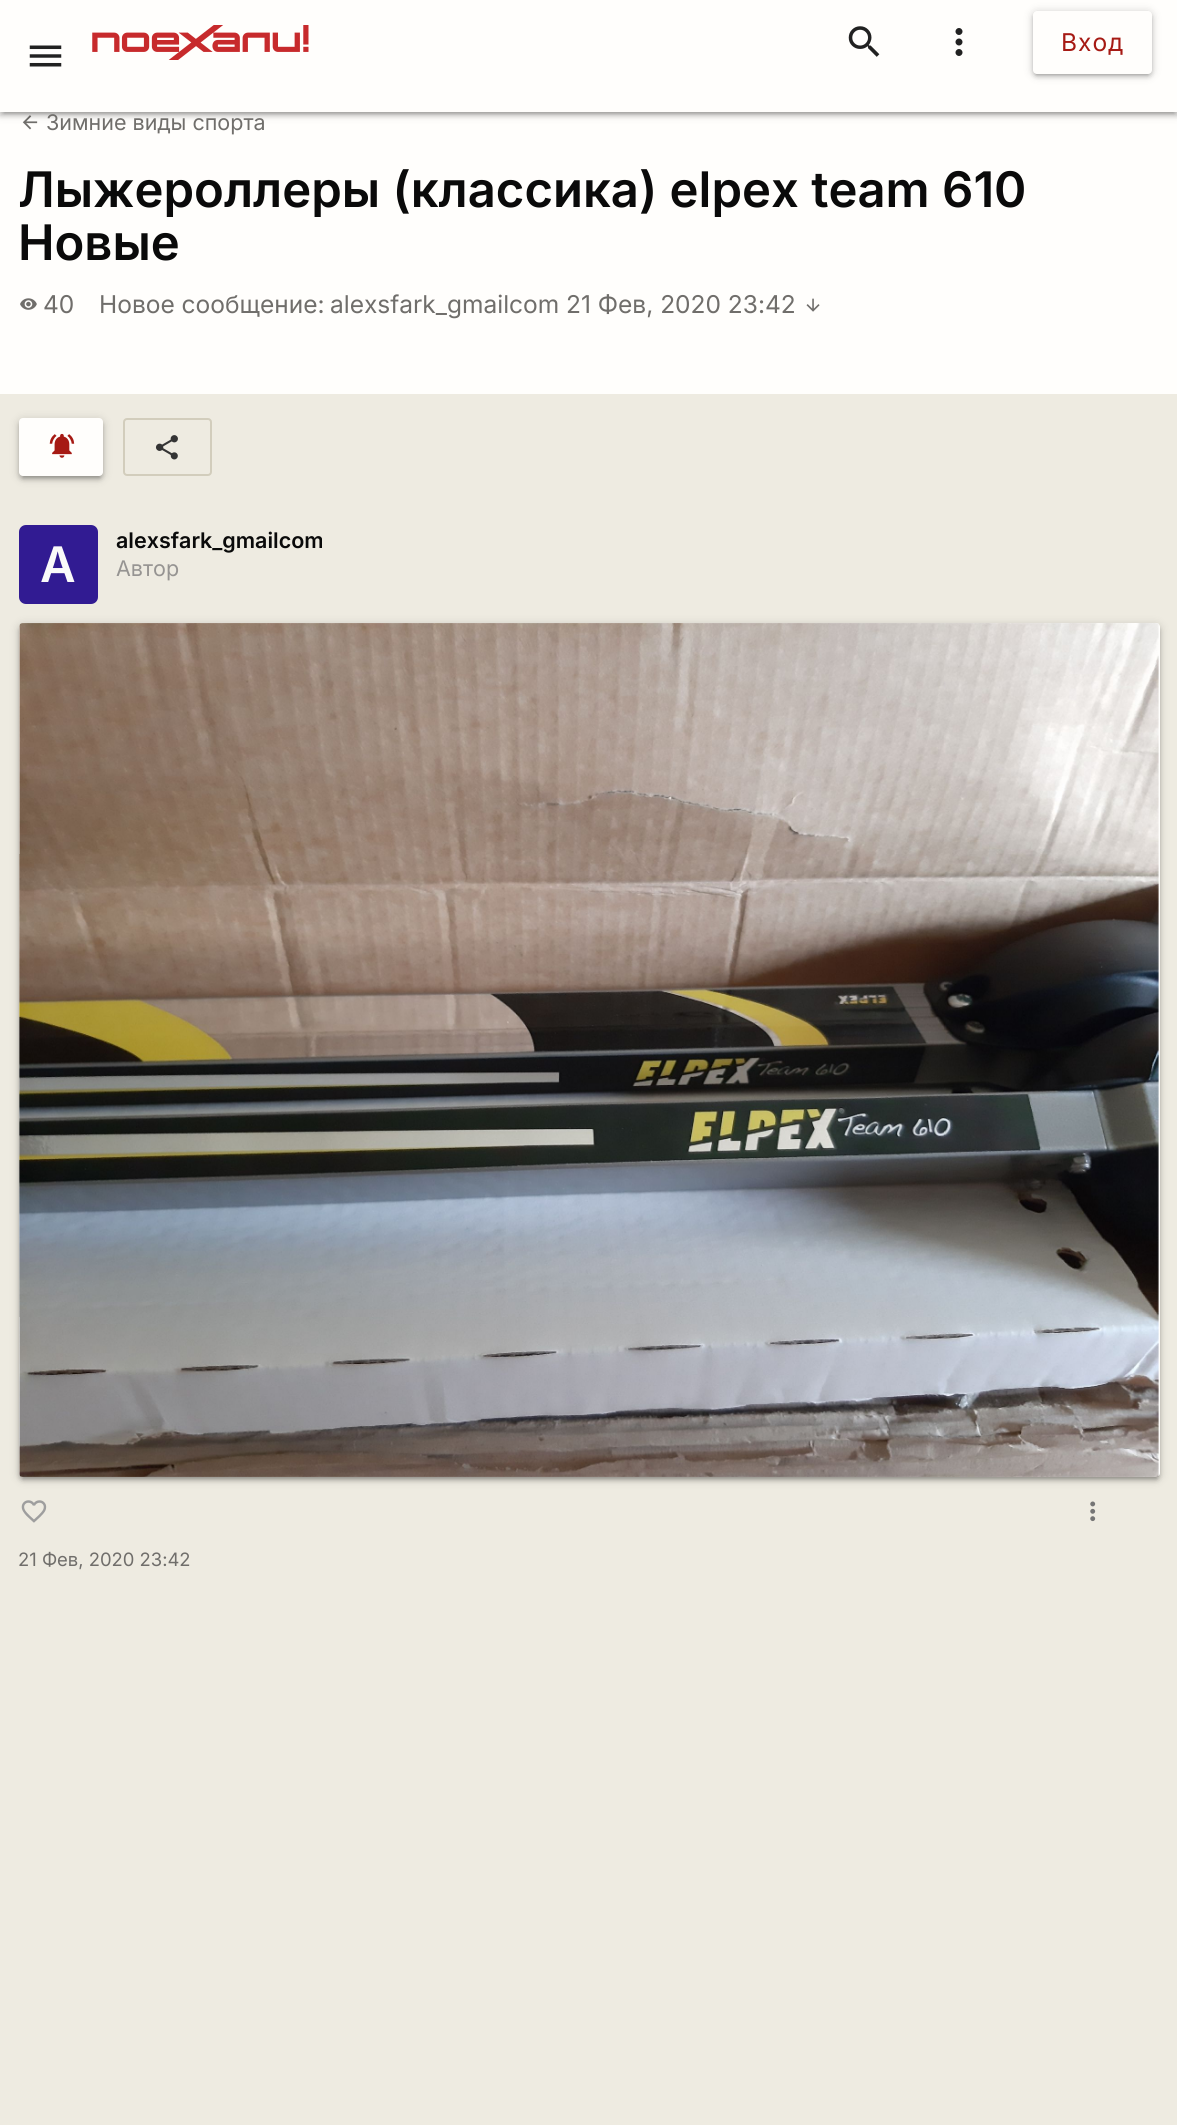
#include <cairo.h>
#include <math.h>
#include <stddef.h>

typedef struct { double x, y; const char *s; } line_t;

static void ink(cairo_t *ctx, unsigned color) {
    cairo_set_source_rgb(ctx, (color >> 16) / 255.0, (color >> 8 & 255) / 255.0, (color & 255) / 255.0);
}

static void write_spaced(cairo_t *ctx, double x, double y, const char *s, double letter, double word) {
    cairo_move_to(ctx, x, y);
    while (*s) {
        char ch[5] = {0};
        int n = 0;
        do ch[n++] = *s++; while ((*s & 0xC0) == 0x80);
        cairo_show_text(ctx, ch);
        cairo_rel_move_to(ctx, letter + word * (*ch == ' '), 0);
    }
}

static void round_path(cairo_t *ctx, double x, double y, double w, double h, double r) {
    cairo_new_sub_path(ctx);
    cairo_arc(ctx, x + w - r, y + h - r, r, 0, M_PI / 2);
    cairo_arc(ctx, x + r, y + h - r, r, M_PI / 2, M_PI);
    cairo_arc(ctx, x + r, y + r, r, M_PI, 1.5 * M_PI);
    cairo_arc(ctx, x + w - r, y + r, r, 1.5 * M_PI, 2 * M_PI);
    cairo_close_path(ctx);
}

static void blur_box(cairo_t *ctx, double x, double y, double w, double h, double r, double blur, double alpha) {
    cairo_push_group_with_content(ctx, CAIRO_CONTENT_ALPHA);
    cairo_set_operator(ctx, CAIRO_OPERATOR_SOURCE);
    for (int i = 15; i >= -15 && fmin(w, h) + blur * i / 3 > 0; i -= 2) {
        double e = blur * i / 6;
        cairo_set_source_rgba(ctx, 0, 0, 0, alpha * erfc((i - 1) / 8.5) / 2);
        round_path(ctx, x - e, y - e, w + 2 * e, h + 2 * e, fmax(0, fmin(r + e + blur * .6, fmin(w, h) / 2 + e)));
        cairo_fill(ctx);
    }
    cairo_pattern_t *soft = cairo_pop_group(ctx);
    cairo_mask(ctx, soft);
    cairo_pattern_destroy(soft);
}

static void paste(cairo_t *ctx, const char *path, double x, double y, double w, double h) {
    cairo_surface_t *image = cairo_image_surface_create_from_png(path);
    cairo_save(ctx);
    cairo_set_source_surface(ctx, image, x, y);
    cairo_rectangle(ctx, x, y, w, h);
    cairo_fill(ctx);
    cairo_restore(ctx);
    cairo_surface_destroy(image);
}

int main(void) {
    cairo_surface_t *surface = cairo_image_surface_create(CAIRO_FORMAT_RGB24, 1177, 2125);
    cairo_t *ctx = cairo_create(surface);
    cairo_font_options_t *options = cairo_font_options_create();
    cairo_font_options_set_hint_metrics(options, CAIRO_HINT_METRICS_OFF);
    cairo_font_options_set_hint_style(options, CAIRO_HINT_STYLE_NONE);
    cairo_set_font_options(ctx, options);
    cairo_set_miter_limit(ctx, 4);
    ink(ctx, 0xEEEBE1);
    cairo_paint(ctx);
    ink(ctx, 0xFFFEFC);
    cairo_rectangle(ctx, 0, 112, 1177, 282);
    cairo_fill(ctx);
    paste(ctx, "media/5.png", 22, 115, 16, 15);
    ink(ctx, 0x000000);
    blur_box(ctx, 0, 2, 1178, 112, 0, 4.5, 0.2);
    blur_box(ctx, 4, 9, 1170, 105, 0, 1, 0.12);
    blur_box(ctx, 0, 4, 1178, 112, 0, 2, 0.14);
    ink(ctx, 0xFFFEFC);
    cairo_rectangle(ctx, 0, 0, 1177, 112);
    cairo_fill(ctx);
    paste(ctx, "media/1.png", 29, 45, 33, 22);
    paste(ctx, "media/2.png", 92, 25, 217, 35);
    paste(ctx, "media/3.png", 848, 26, 32, 31);
    paste(ctx, "media/4.png", 955, 28, 8, 28);
    ink(ctx, 0x000000);
    blur_box(ctx, 1033, 12, 119, 63, 4, 4.5, 0.2);
    blur_box(ctx, 1036, 19, 112, 56, 0, 1, 0.12);
    blur_box(ctx, 1033, 14, 119, 63, 4, 2, 0.14);
    ink(ctx, 0xFFFEFC);
    round_path(ctx, 1033, 11, 119, 63, 4);
    cairo_fill(ctx);
    cairo_select_font_face(ctx, "Inter", CAIRO_FONT_SLANT_NORMAL, CAIRO_FONT_WEIGHT_NORMAL);
    cairo_set_font_size(ctx, 24.5);
    ink(ctx, 0xA61A14);
    write_spaced(ctx, 1061, 51, "Вход", 1, 0);
    cairo_set_font_size(ctx, 21.5);
    ink(ctx, 0x706E6B);
    cairo_move_to(ctx, 46, 130);
    cairo_show_text(ctx, "Зимние виды спорта");
    cairo_select_font_face(ctx, "Inter SemiBold", CAIRO_FONT_SLANT_NORMAL, CAIRO_FONT_WEIGHT_NORMAL);
    cairo_set_font_size(ctx, 49);
    ink(ctx, 0x0A0A0A);
    cairo_move_to(ctx, 18, 207);
    cairo_show_text(ctx, "Лыжероллеры (классика) elpex team 610");
    cairo_move_to(ctx, 18, 260);
    cairo_show_text(ctx, "Новые");
    paste(ctx, "media/6.png", 20, 298, 17, 12);
    cairo_select_font_face(ctx, "Inter", CAIRO_FONT_SLANT_NORMAL, CAIRO_FONT_WEIGHT_NORMAL);
    cairo_set_font_size(ctx, 24.5);
    ink(ctx, 0x706E6B);
    {
        static const line_t items[] = {
            {43, 313, "40"},
            {99, 313, "Новое сообщение:"},
            {330, 313, "alexsfark_gmailcom"},
            {566, 313, "21 Фев, 2020 23:42"},
        };
        for (size_t i = 0; i < sizeof items / sizeof *items; i++) {
            cairo_move_to(ctx, items[i].x, items[i].y);
            cairo_show_text(ctx, items[i].s);
        }
    }
    paste(ctx, "media/7.png", 806, 298, 14, 14);
    ink(ctx, 0x000000);
    blur_box(ctx, 19, 420, 84, 58, 4, 4.5, 0.2);
    blur_box(ctx, 23, 427, 77, 51, 0, 1, 0.12);
    blur_box(ctx, 19, 422, 84, 58, 4, 2, 0.14);
    ink(ctx, 0xFFFEFC);
    round_path(ctx, 19, 418, 84, 58, 4);
    cairo_fill(ctx);
    paste(ctx, "media/8.png", 49, 433, 26, 25);
    round_path(ctx, 124, 419, 87, 56, 3);
    ink(ctx, 0xD2CDBC);
    cairo_stroke(ctx);
    paste(ctx, "media/9.png", 155, 435, 23, 25);
    cairo_select_font_face(ctx, "Inter SemiBold", CAIRO_FONT_SLANT_NORMAL, CAIRO_FONT_WEIGHT_NORMAL);
    cairo_set_font_size(ctx, 21.5);
    ink(ctx, 0x0A0A0A);
    cairo_move_to(ctx, 116, 548);
    cairo_show_text(ctx, "alexsfark_gmailcom");
    ink(ctx, 0x311B92);
    round_path(ctx, 19, 525, 79, 79, 7);
    cairo_fill(ctx);
    cairo_set_font_size(ctx, 49);
    ink(ctx, 0xFAFAFA);
    cairo_move_to(ctx, 40, 582);
    cairo_show_text(ctx, "A");
    cairo_select_font_face(ctx, "Inter", CAIRO_FONT_SLANT_NORMAL, CAIRO_FONT_WEIGHT_NORMAL);
    cairo_set_font_size(ctx, 21.5);
    ink(ctx, 0x969492);
    cairo_move_to(ctx, 116, 576);
    cairo_show_text(ctx, "Автор");
    ink(ctx, 0x000000);
    blur_box(ctx, 19, 625, 1141, 854, 4, 4.5, 0.2);
    blur_box(ctx, 23, 632, 1134, 847, 0, 1, 0.12);
    blur_box(ctx, 19, 627, 1141, 854, 4, 2, 0.14);
    ink(ctx, 0xFFFEFC);
    round_path(ctx, 19, 623, 1141, 854, 4);
    cairo_fill(ctx);
    paste(ctx, "media/10.png", 19, 623, 1140, 854);
    paste(ctx, "media/11.png", 1090, 1501, 6, 21);
    paste(ctx, "media/12.png", 21, 1500, 26, 23);
    cairo_set_font_size(ctx, 18.4);
    ink(ctx, 0x706E6B);
    cairo_move_to(ctx, 18, 1566);
    cairo_show_text(ctx, "21 Фев, 2020 23:42");
    cairo_surface_write_to_png(surface, "image.png");
    cairo_font_options_destroy(options);
    cairo_destroy(ctx);
    cairo_surface_destroy(surface);
    return 0;
}
